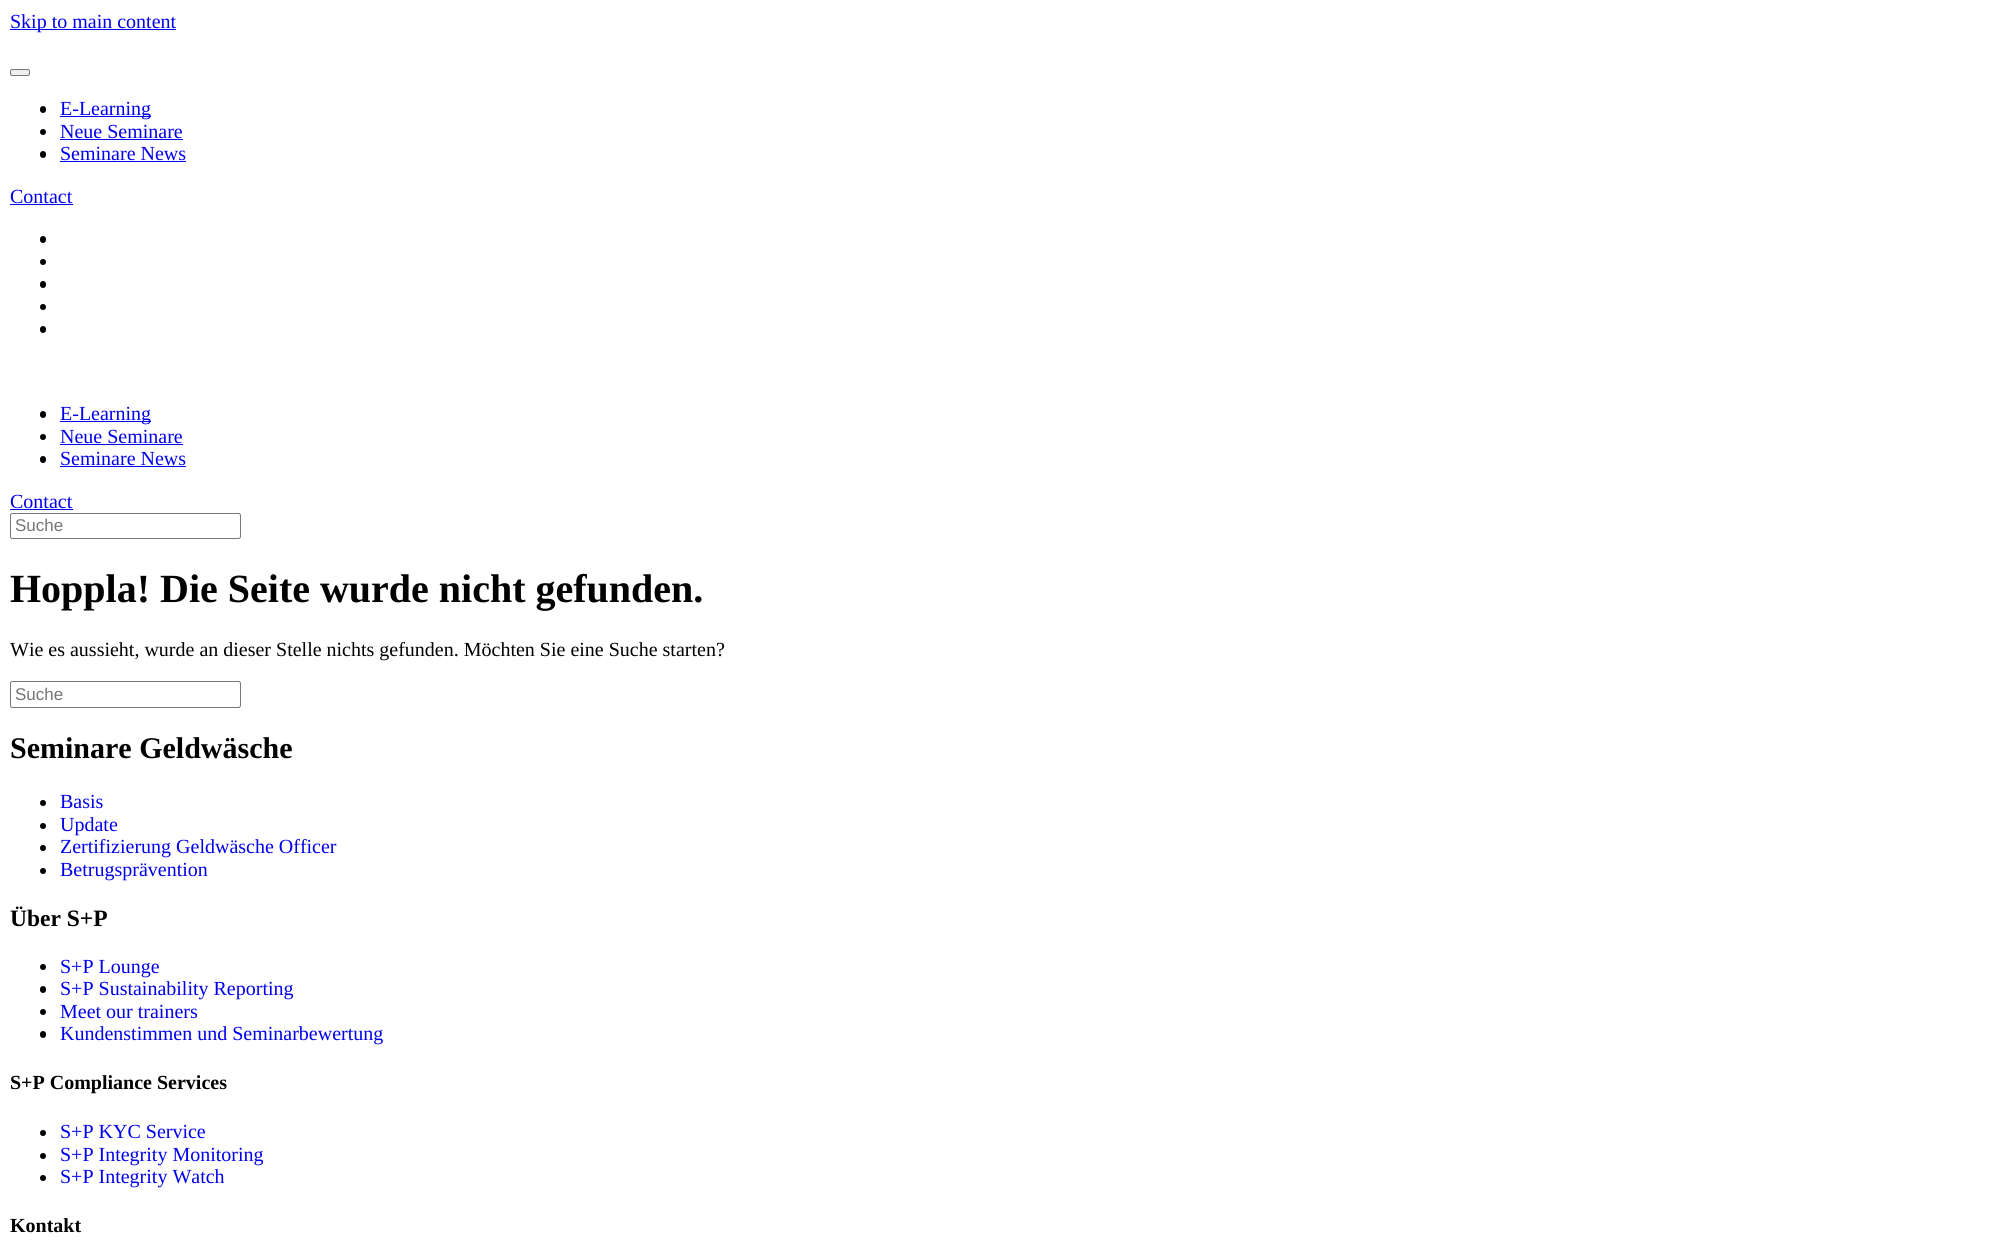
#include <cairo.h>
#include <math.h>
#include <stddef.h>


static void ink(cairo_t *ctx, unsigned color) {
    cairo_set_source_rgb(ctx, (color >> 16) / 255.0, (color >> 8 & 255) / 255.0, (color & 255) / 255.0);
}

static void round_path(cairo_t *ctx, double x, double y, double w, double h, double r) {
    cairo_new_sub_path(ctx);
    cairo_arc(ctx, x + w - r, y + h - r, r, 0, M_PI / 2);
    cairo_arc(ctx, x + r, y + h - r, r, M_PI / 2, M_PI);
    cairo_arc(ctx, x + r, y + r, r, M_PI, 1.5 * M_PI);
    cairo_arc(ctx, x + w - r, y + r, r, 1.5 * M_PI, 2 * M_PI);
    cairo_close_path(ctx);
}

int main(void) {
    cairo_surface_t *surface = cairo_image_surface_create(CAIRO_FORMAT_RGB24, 2004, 1256);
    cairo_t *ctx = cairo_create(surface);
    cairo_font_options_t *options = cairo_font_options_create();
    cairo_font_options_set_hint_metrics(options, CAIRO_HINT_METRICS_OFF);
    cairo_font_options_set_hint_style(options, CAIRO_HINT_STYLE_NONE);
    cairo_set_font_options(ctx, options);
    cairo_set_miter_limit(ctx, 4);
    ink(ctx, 0xFFFFFF);
    cairo_paint(ctx);
    ink(ctx, 0x0000EE);
    cairo_rectangle(ctx, 10, 29, 166, 1);
    cairo_fill(ctx);
    cairo_select_font_face(ctx, "Liberation Serif", CAIRO_FONT_SLANT_NORMAL, CAIRO_FONT_WEIGHT_NORMAL);
    cairo_set_font_size(ctx, 20);
    cairo_move_to(ctx, 10, 28);
    cairo_show_text(ctx, "Skip to main content");
    ink(ctx, 0xEFEFEF);
    round_path(ctx, 10.5, 69.5, 19, 6, 2);
    cairo_fill_preserve(ctx);
    ink(ctx, 0x767676);
    cairo_set_line_width(ctx, 1);
    cairo_stroke(ctx);
    ink(ctx, 0x000000);
    round_path(ctx, 40, 106, 6, 7, 3);
    cairo_fill(ctx);
    ink(ctx, 0x0000EE);
    cairo_rectangle(ctx, 60, 116, 91, 1);
    cairo_fill(ctx);
    cairo_move_to(ctx, 60, 115);
    cairo_show_text(ctx, "E-Learning");
    ink(ctx, 0x000000);
    cairo_new_path(ctx);
    cairo_arc(ctx, 43, 132, 3, 0, 2 * M_PI);
    cairo_fill(ctx);
    ink(ctx, 0x0000EE);
    cairo_move_to(ctx, 60, 138);
    cairo_show_text(ctx, "Neue Seminare");
    cairo_rectangle(ctx, 60, 139, 123, 1);
    cairo_fill(ctx);
    ink(ctx, 0x000000);
    round_path(ctx, 40, 151, 6, 7, 3);
    cairo_fill(ctx);
    ink(ctx, 0x0000EE);
    cairo_move_to(ctx, 60, 160);
    cairo_show_text(ctx, "Seminare News");
    cairo_rectangle(ctx, 60, 161, 126, 1);
    cairo_fill(ctx);
    cairo_move_to(ctx, 10, 203);
    cairo_show_text(ctx, "Contact");
    cairo_rectangle(ctx, 10, 204, 63, 1);
    cairo_fill(ctx);
    ink(ctx, 0x000000);
    round_path(ctx, 40, 236, 6, 7, 3);
    cairo_fill(ctx);
    cairo_arc(ctx, 43, 262, 3, 0, 2 * M_PI);
    cairo_fill(ctx);
    round_path(ctx, 40, 281, 6, 7, 3);
    cairo_fill(ctx);
    cairo_arc(ctx, 43, 307, 3, 0, 2 * M_PI);
    cairo_fill(ctx);
    round_path(ctx, 40, 326, 6, 7, 3);
    cairo_fill(ctx);
    round_path(ctx, 40, 411, 6, 7, 3);
    cairo_fill(ctx);
    ink(ctx, 0x0000EE);
    cairo_rectangle(ctx, 60, 421, 91, 1);
    cairo_fill(ctx);
    cairo_move_to(ctx, 60, 420);
    cairo_show_text(ctx, "E-Learning");
    ink(ctx, 0x000000);
    cairo_new_path(ctx);
    cairo_arc(ctx, 43, 437, 3, 0, 2 * M_PI);
    cairo_fill(ctx);
    ink(ctx, 0x0000EE);
    cairo_move_to(ctx, 60, 443);
    cairo_show_text(ctx, "Neue Seminare");
    cairo_rectangle(ctx, 60, 444, 123, 1);
    cairo_fill(ctx);
    ink(ctx, 0x000000);
    round_path(ctx, 40, 456, 6, 7, 3);
    cairo_fill(ctx);
    ink(ctx, 0x0000EE);
    cairo_move_to(ctx, 60, 465);
    cairo_show_text(ctx, "Seminare News");
    cairo_rectangle(ctx, 60, 466, 126, 1);
    cairo_fill(ctx);
    cairo_move_to(ctx, 10, 508);
    cairo_show_text(ctx, "Contact");
    cairo_rectangle(ctx, 10, 509, 63, 1);
    cairo_fill(ctx);
    round_path(ctx, 10.5, 513.5, 230, 25, 2);
    ink(ctx, 0x767676);
    cairo_stroke(ctx);
    cairo_select_font_face(ctx, "Liberation Sans", CAIRO_FONT_SLANT_NORMAL, CAIRO_FONT_WEIGHT_NORMAL);
    cairo_set_font_size(ctx, 17);
    ink(ctx, 0x757575);
    cairo_move_to(ctx, 15, 531);
    cairo_show_text(ctx, "Suche");
    cairo_select_font_face(ctx, "Liberation Serif", CAIRO_FONT_SLANT_NORMAL, CAIRO_FONT_WEIGHT_BOLD);
    cairo_set_font_size(ctx, 40);
    ink(ctx, 0x000000);
    cairo_move_to(ctx, 10, 602);
    cairo_show_text(ctx, "Hoppla! Die Seite wurde nicht gefunden.");
    cairo_select_font_face(ctx, "Liberation Serif", CAIRO_FONT_SLANT_NORMAL, CAIRO_FONT_WEIGHT_NORMAL);
    cairo_set_font_size(ctx, 20);
    cairo_move_to(ctx, 10, 656);
    cairo_show_text(ctx, "Wie es aussieht, wurde an dieser Stelle nichts gefunden. Möchten Sie eine Suche starten?");
    round_path(ctx, 10.5, 681.5, 230, 26, 2);
    ink(ctx, 0x767676);
    cairo_stroke(ctx);
    cairo_select_font_face(ctx, "Liberation Sans", CAIRO_FONT_SLANT_NORMAL, CAIRO_FONT_WEIGHT_NORMAL);
    cairo_set_font_size(ctx, 17);
    ink(ctx, 0x757575);
    cairo_move_to(ctx, 15, 700);
    cairo_show_text(ctx, "Suche");
    cairo_select_font_face(ctx, "Liberation Serif", CAIRO_FONT_SLANT_NORMAL, CAIRO_FONT_WEIGHT_BOLD);
    cairo_set_font_size(ctx, 30);
    ink(ctx, 0x000000);
    cairo_move_to(ctx, 10, 758);
    cairo_show_text(ctx, "Seminare Geldwäsche");
    cairo_new_path(ctx);
    cairo_arc(ctx, 43, 803, 3, 0, 2 * M_PI);
    cairo_fill(ctx);
    cairo_select_font_face(ctx, "Liberation Serif", CAIRO_FONT_SLANT_NORMAL, CAIRO_FONT_WEIGHT_NORMAL);
    cairo_set_font_size(ctx, 20);
    ink(ctx, 0x0000EE);
    cairo_move_to(ctx, 60, 808);
    cairo_show_text(ctx, "Basis");
    ink(ctx, 0x000000);
    cairo_new_path(ctx);
    cairo_arc(ctx, 43, 826, 3, 0, 2 * M_PI);
    cairo_fill(ctx);
    ink(ctx, 0x0000EE);
    cairo_move_to(ctx, 60, 831);
    cairo_show_text(ctx, "Update");
    ink(ctx, 0x000000);
    cairo_new_path(ctx);
    cairo_arc(ctx, 43, 848, 3, 0, 2 * M_PI);
    cairo_fill(ctx);
    ink(ctx, 0x0000EE);
    cairo_move_to(ctx, 60, 853);
    cairo_show_text(ctx, "Zertifizierung Geldwäsche Officer");
    ink(ctx, 0x000000);
    cairo_new_path(ctx);
    cairo_arc(ctx, 43, 871, 3, 0, 2 * M_PI);
    cairo_fill(ctx);
    ink(ctx, 0x0000EE);
    cairo_move_to(ctx, 60, 876);
    cairo_show_text(ctx, "Betrugsprävention");
    cairo_select_font_face(ctx, "Liberation Serif", CAIRO_FONT_SLANT_NORMAL, CAIRO_FONT_WEIGHT_BOLD);
    cairo_set_font_size(ctx, 23.5);
    ink(ctx, 0x000000);
    cairo_move_to(ctx, 10, 926);
    cairo_show_text(ctx, "Über S+P");
    cairo_new_path(ctx);
    cairo_arc(ctx, 43, 967, 3, 0, 2 * M_PI);
    cairo_fill(ctx);
    cairo_select_font_face(ctx, "Liberation Serif", CAIRO_FONT_SLANT_NORMAL, CAIRO_FONT_WEIGHT_NORMAL);
    cairo_set_font_size(ctx, 20);
    ink(ctx, 0x0000EE);
    cairo_move_to(ctx, 60, 973);
    cairo_show_text(ctx, "S+P Lounge");
    ink(ctx, 0x000000);
    round_path(ctx, 40, 986, 6, 7, 3);
    cairo_fill(ctx);
    ink(ctx, 0x0000EE);
    cairo_move_to(ctx, 60, 995);
    cairo_show_text(ctx, "S+P Sustainability Reporting");
    ink(ctx, 0x000000);
    cairo_new_path(ctx);
    cairo_arc(ctx, 43, 1012, 3, 0, 2 * M_PI);
    cairo_fill(ctx);
    ink(ctx, 0x0000EE);
    cairo_move_to(ctx, 60, 1018);
    cairo_show_text(ctx, "Meet our trainers");
    ink(ctx, 0x000000);
    round_path(ctx, 40, 1031, 6, 7, 3);
    cairo_fill(ctx);
    ink(ctx, 0x0000EE);
    cairo_move_to(ctx, 60, 1040);
    cairo_show_text(ctx, "Kundenstimmen und Seminarbewertung");
    cairo_select_font_face(ctx, "Liberation Serif", CAIRO_FONT_SLANT_NORMAL, CAIRO_FONT_WEIGHT_BOLD);
    ink(ctx, 0x000000);
    cairo_move_to(ctx, 10, 1089);
    cairo_show_text(ctx, "S+P Compliance Services");
    cairo_new_path(ctx);
    cairo_arc(ctx, 43, 1133, 3, 0, 2 * M_PI);
    cairo_fill(ctx);
    cairo_select_font_face(ctx, "Liberation Serif", CAIRO_FONT_SLANT_NORMAL, CAIRO_FONT_WEIGHT_NORMAL);
    ink(ctx, 0x0000EE);
    cairo_move_to(ctx, 60, 1138);
    cairo_show_text(ctx, "S+P KYC Service");
    ink(ctx, 0x000000);
    cairo_new_path(ctx);
    cairo_arc(ctx, 43, 1156, 3, 0, 2 * M_PI);
    cairo_fill(ctx);
    ink(ctx, 0x0000EE);
    cairo_move_to(ctx, 60, 1161);
    cairo_show_text(ctx, "S+P Integrity Monitoring");
    ink(ctx, 0x000000);
    cairo_new_path(ctx);
    cairo_arc(ctx, 43, 1178, 3, 0, 2 * M_PI);
    cairo_fill(ctx);
    ink(ctx, 0x0000EE);
    cairo_move_to(ctx, 60, 1183);
    cairo_show_text(ctx, "S+P Integrity Watch");
    cairo_select_font_face(ctx, "Liberation Serif", CAIRO_FONT_SLANT_NORMAL, CAIRO_FONT_WEIGHT_BOLD);
    ink(ctx, 0x000000);
    cairo_move_to(ctx, 10, 1232);
    cairo_show_text(ctx, "Kontakt");
    cairo_surface_write_to_png(surface, "image.png");
    cairo_font_options_destroy(options);
    cairo_destroy(ctx);
    cairo_surface_destroy(surface);
    return 0;
}
